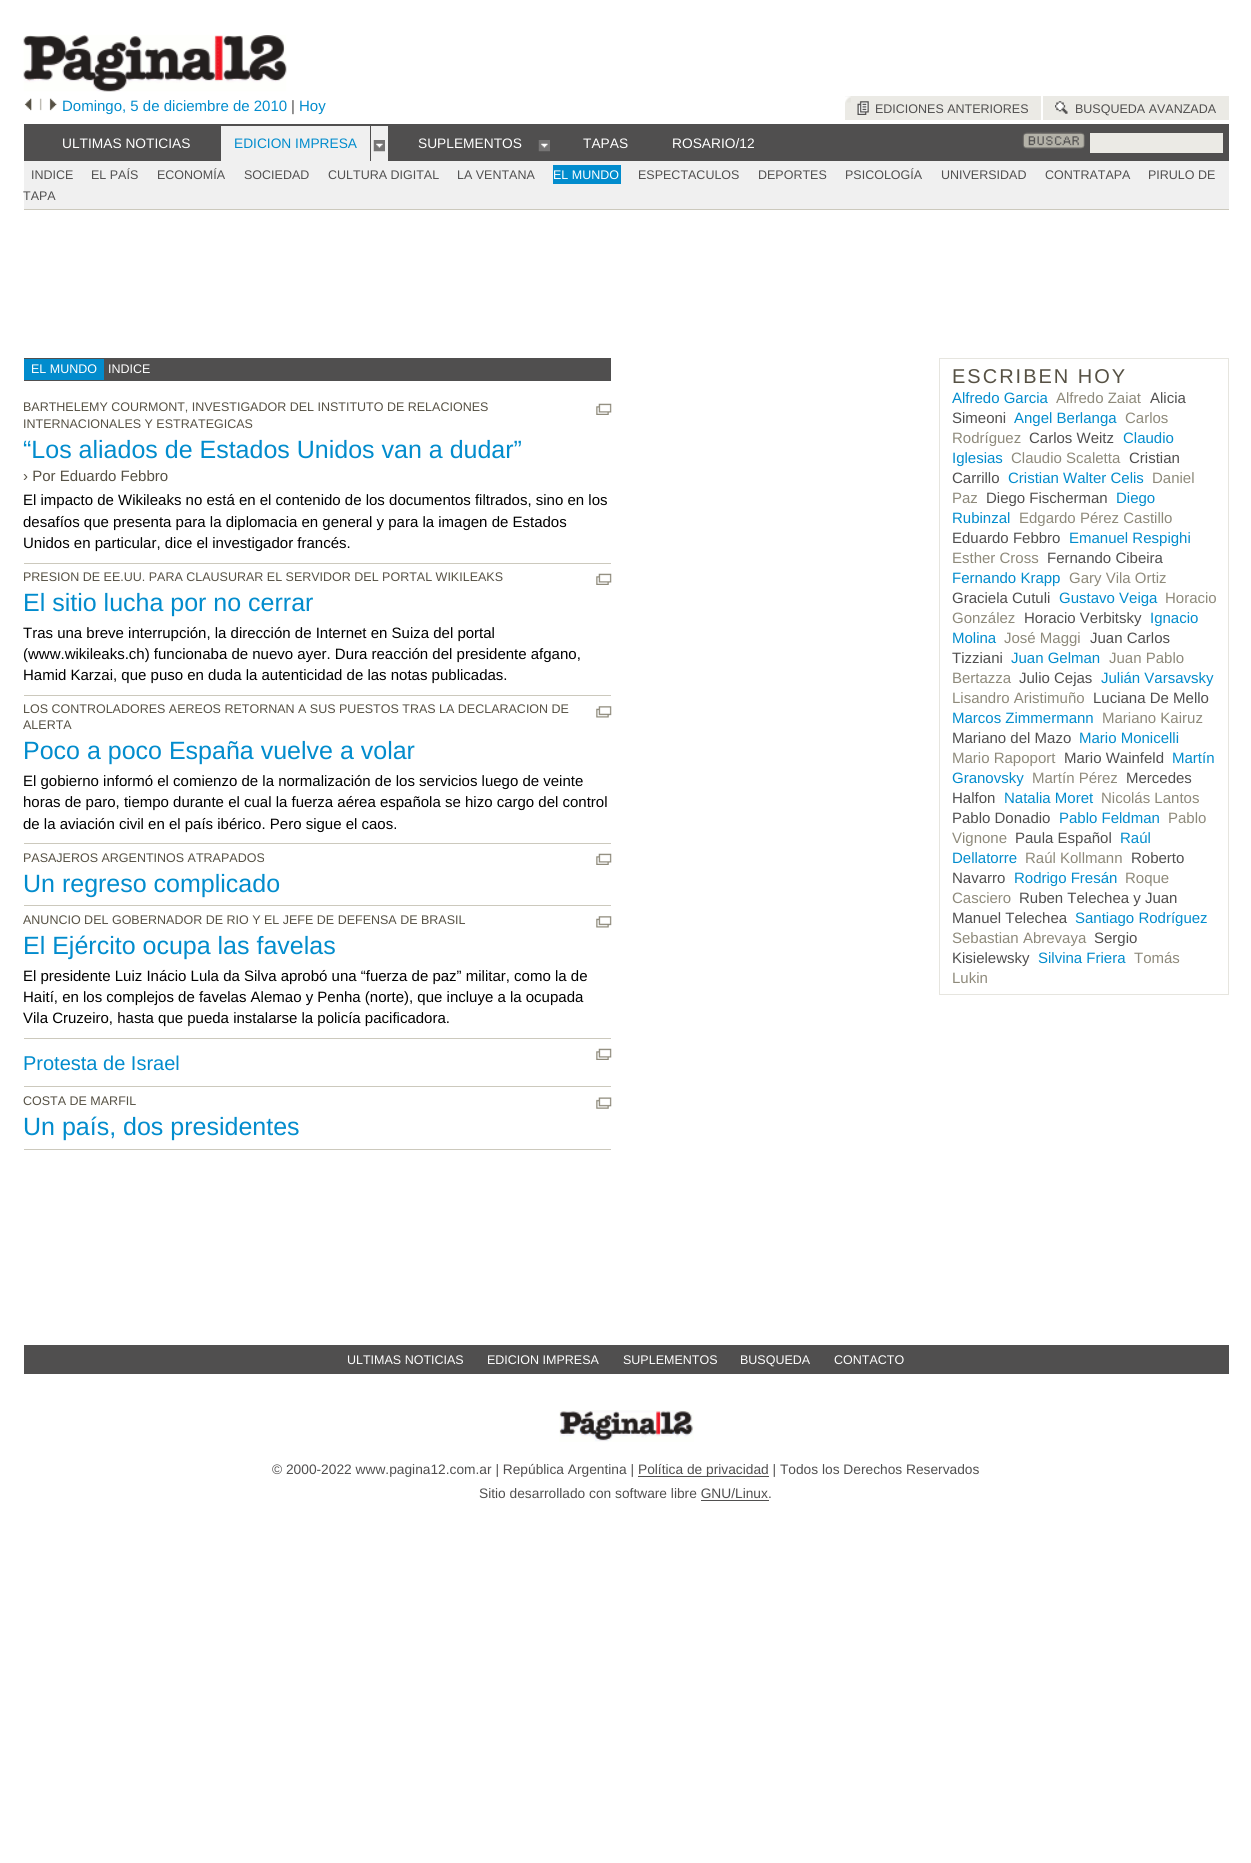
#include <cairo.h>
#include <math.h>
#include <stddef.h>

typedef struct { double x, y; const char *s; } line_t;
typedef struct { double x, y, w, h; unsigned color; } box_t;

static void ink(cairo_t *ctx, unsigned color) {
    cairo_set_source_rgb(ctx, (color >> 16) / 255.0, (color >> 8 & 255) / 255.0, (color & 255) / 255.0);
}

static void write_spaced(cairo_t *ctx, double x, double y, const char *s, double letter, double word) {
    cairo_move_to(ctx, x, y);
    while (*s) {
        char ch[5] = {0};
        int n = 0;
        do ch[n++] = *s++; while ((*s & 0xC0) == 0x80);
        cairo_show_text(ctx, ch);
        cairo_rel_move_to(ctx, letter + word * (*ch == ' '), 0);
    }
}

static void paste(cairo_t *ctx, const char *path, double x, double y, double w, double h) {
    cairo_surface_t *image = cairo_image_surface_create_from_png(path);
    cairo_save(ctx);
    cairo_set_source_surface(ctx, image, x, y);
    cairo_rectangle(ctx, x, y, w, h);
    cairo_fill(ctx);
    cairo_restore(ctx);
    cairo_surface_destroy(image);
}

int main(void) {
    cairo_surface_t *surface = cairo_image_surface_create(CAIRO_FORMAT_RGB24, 1251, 1863);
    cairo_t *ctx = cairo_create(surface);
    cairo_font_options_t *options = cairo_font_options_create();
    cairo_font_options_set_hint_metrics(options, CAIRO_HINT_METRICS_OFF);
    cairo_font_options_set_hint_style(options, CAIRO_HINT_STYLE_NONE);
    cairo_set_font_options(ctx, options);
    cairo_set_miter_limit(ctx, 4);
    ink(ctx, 0xFFFFFF);
    cairo_paint(ctx);
    paste(ctx, "media/1.png", 23, 35, 264, 57);
    paste(ctx, "media/2.png", 24, 98, 8, 13);
    paste(ctx, "media/3.png", 39, 98, 3, 13);
    paste(ctx, "media/4.png", 49, 98, 8, 13);
    cairo_select_font_face(ctx, "Liberation Sans", CAIRO_FONT_SLANT_NORMAL, CAIRO_FONT_WEIGHT_NORMAL);
    cairo_set_font_size(ctx, 15);
    ink(ctx, 0x028CCD);
    cairo_move_to(ctx, 62, 111);
    cairo_show_text(ctx, "Domingo, 5 de diciembre de 2010");
    ink(ctx, 0x504F4F);
    cairo_move_to(ctx, 291, 111);
    cairo_show_text(ctx, "|");
    ink(ctx, 0x028CCD);
    cairo_move_to(ctx, 299, 111);
    cairo_show_text(ctx, "Hoy");
    ink(ctx, 0xEBEAE5);
    cairo_rectangle(ctx, 845, 96, 196, 24);
    cairo_fill(ctx);
    paste(ctx, "media/5.png", 845, 96, 6, 7);
    paste(ctx, "media/6.png", 857, 101, 12, 14);
    cairo_set_font_size(ctx, 12.5);
    ink(ctx, 0x504F4F);
    cairo_move_to(ctx, 875, 113);
    cairo_show_text(ctx, "EDICIONES ANTERIORES");
    ink(ctx, 0xEBEAE5);
    cairo_rectangle(ctx, 1043, 96, 186, 24);
    cairo_fill(ctx);
    paste(ctx, "media/7.png", 1055, 101, 13, 13);
    ink(ctx, 0x504F4F);
    cairo_move_to(ctx, 1075, 113);
    cairo_show_text(ctx, "BUSQUEDA AVANZADA");
    cairo_rectangle(ctx, 24, 124, 1205, 37);
    cairo_fill(ctx);
    cairo_set_font_size(ctx, 13.75);
    ink(ctx, 0xFFFFFF);
    cairo_move_to(ctx, 62, 148);
    cairo_show_text(ctx, "ULTIMAS NOTICIAS");
    ink(ctx, 0xF0F0F0);
    cairo_rectangle(ctx, 221, 126, 149, 35);
    cairo_fill(ctx);
    ink(ctx, 0x028CCD);
    cairo_move_to(ctx, 234, 148);
    cairo_show_text(ctx, "EDICION IMPRESA");
    ink(ctx, 0xF0F0F0);
    cairo_rectangle(ctx, 371, 126, 17, 35);
    cairo_fill(ctx);
    paste(ctx, "media/8.png", 373, 140, 12, 12);
    ink(ctx, 0xFFFFFF);
    cairo_move_to(ctx, 418, 148);
    cairo_show_text(ctx, "SUPLEMENTOS");
    paste(ctx, "media/9.png", 538, 140, 12, 12);
    cairo_move_to(ctx, 583, 148);
    cairo_show_text(ctx, "TAPAS");
    cairo_move_to(ctx, 672, 148);
    cairo_show_text(ctx, "ROSARIO/12");
    paste(ctx, "media/10.png", 1022, 132, 63, 17);
    {
        static const box_t items[] = {
            {1090, 133, 133, 20, 0xEBEAE5},
            {24, 161, 1205, 48, 0xF0F0F0},
            {24, 209, 1205, 1, 0xCCC9BD},
        };
        for (size_t i = 0; i < sizeof items / sizeof *items; i++) {
            ink(ctx, items[i].color);
            cairo_rectangle(ctx, items[i].x, items[i].y, items[i].w, items[i].h);
            cairo_fill(ctx);
        }
    }
    cairo_set_font_size(ctx, 12.5);
    ink(ctx, 0x504F4F);
    {
        static const line_t items[] = {
            {31, 179, "INDICE"},
            {91, 179, "EL PAÍS"},
            {157, 179, "ECONOMÍA"},
            {244, 179, "SOCIEDAD"},
            {328, 179, "CULTURA DIGITAL"},
            {457, 179, "LA VENTANA"},
        };
        for (size_t i = 0; i < sizeof items / sizeof *items; i++) {
            cairo_move_to(ctx, items[i].x, items[i].y);
            cairo_show_text(ctx, items[i].s);
        }
    }
    ink(ctx, 0x028CCD);
    cairo_rectangle(ctx, 553, 165, 68, 19);
    cairo_fill(ctx);
    ink(ctx, 0xFFFFFF);
    cairo_move_to(ctx, 553, 179);
    cairo_show_text(ctx, "EL MUNDO");
    ink(ctx, 0x504F4F);
    {
        static const line_t items[] = {
            {638, 179, "ESPECTACULOS"},
            {758, 179, "DEPORTES"},
            {845, 179, "PSICOLOGÍA"},
            {941, 179, "UNIVERSIDAD"},
            {1045, 179, "CONTRATAPA"},
            {1148, 179, "PIRULO DE"},
            {23, 200, "TAPA"},
        };
        for (size_t i = 0; i < sizeof items / sizeof *items; i++) {
            cairo_move_to(ctx, items[i].x, items[i].y);
            cairo_show_text(ctx, items[i].s);
        }
    }
    cairo_rectangle(ctx, 24, 358, 587, 23);
    cairo_fill(ctx);
    ink(ctx, 0x028CCD);
    cairo_rectangle(ctx, 24, 359, 80, 21);
    cairo_fill(ctx);
    ink(ctx, 0xFFFFFF);
    cairo_move_to(ctx, 31, 373);
    cairo_show_text(ctx, "EL MUNDO");
    cairo_move_to(ctx, 108, 373);
    cairo_show_text(ctx, "INDICE");
    ink(ctx, 0xCCC9BD);
    cairo_rectangle(ctx, 24, 563, 587, 1);
    cairo_fill(ctx);
    ink(ctx, 0x565144);
    cairo_move_to(ctx, 23, 411);
    cairo_show_text(ctx, "BARTHELEMY COURMONT, INVESTIGADOR DEL INSTITUTO DE RELACIONES");
    cairo_move_to(ctx, 23, 428);
    cairo_show_text(ctx, "INTERNACIONALES Y ESTRATEGICAS");
    paste(ctx, "media/11.png", 596, 403, 16, 12);
    cairo_set_font_size(ctx, 25);
    ink(ctx, 0x028CCD);
    cairo_move_to(ctx, 23, 458);
    cairo_show_text(ctx, "“Los aliados de Estados Unidos van a dudar”");
    cairo_set_font_size(ctx, 15);
    ink(ctx, 0x565144);
    cairo_move_to(ctx, 23, 481);
    cairo_show_text(ctx, "› Por Eduardo Febbro");
    ink(ctx, 0x000000);
    {
        static const line_t items[] = {
            {23, 505, "El impacto de Wikileaks no está en el contenido de los documentos filtrados, sino en los"},
            {23, 527, "desafíos que presenta para la diplomacia en general y para la imagen de Estados"},
            {23, 548, "Unidos en particular, dice el investigador francés."},
        };
        for (size_t i = 0; i < sizeof items / sizeof *items; i++) {
            cairo_move_to(ctx, items[i].x, items[i].y);
            cairo_show_text(ctx, items[i].s);
        }
    }
    ink(ctx, 0xCCC9BD);
    cairo_rectangle(ctx, 24, 695, 587, 1);
    cairo_fill(ctx);
    cairo_set_font_size(ctx, 12.5);
    ink(ctx, 0x565144);
    cairo_move_to(ctx, 23, 581);
    cairo_show_text(ctx, "PRESION DE EE.UU. PARA CLAUSURAR EL SERVIDOR DEL PORTAL WIKILEAKS");
    paste(ctx, "media/11.png", 596, 573, 16, 12);
    cairo_set_font_size(ctx, 25);
    ink(ctx, 0x028CCD);
    cairo_move_to(ctx, 23, 611);
    cairo_show_text(ctx, "El sitio lucha por no cerrar");
    cairo_set_font_size(ctx, 15);
    ink(ctx, 0x000000);
    {
        static const line_t items[] = {
            {23, 638, "Tras una breve interrupción, la dirección de Internet en Suiza del portal"},
            {23, 659, "(www.wikileaks.ch) funcionaba de nuevo ayer. Dura reacción del presidente afgano,"},
            {23, 680, "Hamid Karzai, que puso en duda la autenticidad de las notas publicadas."},
        };
        for (size_t i = 0; i < sizeof items / sizeof *items; i++) {
            cairo_move_to(ctx, items[i].x, items[i].y);
            cairo_show_text(ctx, items[i].s);
        }
    }
    ink(ctx, 0xCCC9BD);
    cairo_rectangle(ctx, 24, 843, 587, 1);
    cairo_fill(ctx);
    cairo_set_font_size(ctx, 12.5);
    ink(ctx, 0x565144);
    cairo_move_to(ctx, 23, 713);
    cairo_show_text(ctx, "LOS CONTROLADORES AEREOS RETORNAN A SUS PUESTOS TRAS LA DECLARACION DE");
    cairo_move_to(ctx, 23, 729);
    cairo_show_text(ctx, "ALERTA");
    paste(ctx, "media/12.png", 596, 706, 16, 12);
    cairo_set_font_size(ctx, 25);
    ink(ctx, 0x028CCD);
    cairo_move_to(ctx, 23, 759);
    cairo_show_text(ctx, "Poco a poco España vuelve a volar");
    cairo_set_font_size(ctx, 15);
    ink(ctx, 0x000000);
    {
        static const line_t items[] = {
            {23, 786, "El gobierno informó el comienzo de la normalización de los servicios luego de veinte"},
            {23, 807, "horas de paro, tiempo durante el cual la fuerza aérea española se hizo cargo del control"},
            {23, 829, "de la aviación civil en el país ibérico. Pero sigue el caos."},
        };
        for (size_t i = 0; i < sizeof items / sizeof *items; i++) {
            cairo_move_to(ctx, items[i].x, items[i].y);
            cairo_show_text(ctx, items[i].s);
        }
    }
    ink(ctx, 0xCCC9BD);
    cairo_rectangle(ctx, 24, 905, 587, 1);
    cairo_fill(ctx);
    cairo_set_font_size(ctx, 12.5);
    ink(ctx, 0x565144);
    cairo_move_to(ctx, 23, 862);
    cairo_show_text(ctx, "PASAJEROS ARGENTINOS ATRAPADOS");
    paste(ctx, "media/11.png", 596, 853, 16, 12);
    cairo_set_font_size(ctx, 25);
    ink(ctx, 0x028CCD);
    cairo_move_to(ctx, 23, 892);
    cairo_show_text(ctx, "Un regreso complicado");
    ink(ctx, 0xCCC9BD);
    cairo_rectangle(ctx, 24, 1038, 587, 1);
    cairo_fill(ctx);
    cairo_set_font_size(ctx, 12.5);
    ink(ctx, 0x565144);
    cairo_move_to(ctx, 23, 924);
    cairo_show_text(ctx, "ANUNCIO DEL GOBERNADOR DE RIO Y EL JEFE DE DEFENSA DE BRASIL");
    paste(ctx, "media/12.png", 596, 916, 16, 12);
    cairo_set_font_size(ctx, 25);
    ink(ctx, 0x028CCD);
    cairo_move_to(ctx, 23, 954);
    cairo_show_text(ctx, "El Ejército ocupa las favelas");
    cairo_set_font_size(ctx, 15);
    ink(ctx, 0x000000);
    {
        static const line_t items[] = {
            {23, 981, "El presidente Luiz Inácio Lula da Silva aprobó una “fuerza de paz” militar, como la de"},
            {23, 1002, "Haití, en los complejos de favelas Alemao y Penha (norte), que incluye a la ocupada"},
            {23, 1023, "Vila Cruzeiro, hasta que pueda instalarse la policía pacificadora."},
        };
        for (size_t i = 0; i < sizeof items / sizeof *items; i++) {
            cairo_move_to(ctx, items[i].x, items[i].y);
            cairo_show_text(ctx, items[i].s);
        }
    }
    ink(ctx, 0xCCC9BD);
    cairo_rectangle(ctx, 24, 1086, 587, 1);
    cairo_fill(ctx);
    cairo_set_font_size(ctx, 20);
    ink(ctx, 0x028CCD);
    cairo_move_to(ctx, 23, 1070);
    cairo_show_text(ctx, "Protesta de Israel");
    paste(ctx, "media/11.png", 596, 1048, 16, 12);
    ink(ctx, 0xCCC9BD);
    cairo_rectangle(ctx, 24, 1149, 587, 1);
    cairo_fill(ctx);
    cairo_set_font_size(ctx, 12.5);
    ink(ctx, 0x565144);
    cairo_move_to(ctx, 23, 1105);
    cairo_show_text(ctx, "COSTA DE MARFIL");
    paste(ctx, "media/13.png", 596, 1097, 16, 12);
    cairo_set_font_size(ctx, 25);
    ink(ctx, 0x028CCD);
    cairo_move_to(ctx, 23, 1135);
    cairo_show_text(ctx, "Un país, dos presidentes");
    cairo_rectangle(ctx, 939.5, 358.5, 289, 636);
    ink(ctx, 0xE6E5DF);
    cairo_set_line_width(ctx, 1);
    cairo_stroke(ctx);
    cairo_set_font_size(ctx, 20);
    ink(ctx, 0x565144);
    write_spaced(ctx, 952, 383, "ESCRIBEN HOY", 2, 0);
    cairo_set_font_size(ctx, 15);
    ink(ctx, 0x028CCD);
    cairo_move_to(ctx, 952, 403);
    cairo_show_text(ctx, "Alfredo Garcia");
    ink(ctx, 0x8E8A7B);
    cairo_move_to(ctx, 1056, 403);
    cairo_show_text(ctx, "Alfredo Zaiat");
    ink(ctx, 0x504F4F);
    cairo_move_to(ctx, 1150, 403);
    cairo_show_text(ctx, "Alicia");
    cairo_move_to(ctx, 952, 423);
    cairo_show_text(ctx, "Simeoni");
    ink(ctx, 0x028CCD);
    cairo_move_to(ctx, 1014, 423);
    cairo_show_text(ctx, "Angel Berlanga");
    ink(ctx, 0x8E8A7B);
    cairo_move_to(ctx, 1125, 423);
    cairo_show_text(ctx, "Carlos");
    cairo_move_to(ctx, 952, 443);
    cairo_show_text(ctx, "Rodríguez");
    ink(ctx, 0x504F4F);
    cairo_move_to(ctx, 1029, 443);
    cairo_show_text(ctx, "Carlos Weitz");
    ink(ctx, 0x028CCD);
    cairo_move_to(ctx, 1123, 443);
    cairo_show_text(ctx, "Claudio");
    cairo_move_to(ctx, 952, 463);
    cairo_show_text(ctx, "Iglesias");
    ink(ctx, 0x8E8A7B);
    cairo_move_to(ctx, 1011, 463);
    cairo_show_text(ctx, "Claudio Scaletta");
    ink(ctx, 0x504F4F);
    cairo_move_to(ctx, 1129, 463);
    cairo_show_text(ctx, "Cristian");
    cairo_move_to(ctx, 952, 483);
    cairo_show_text(ctx, "Carrillo");
    ink(ctx, 0x028CCD);
    cairo_move_to(ctx, 1008, 483);
    cairo_show_text(ctx, "Cristian Walter Celis");
    ink(ctx, 0x8E8A7B);
    cairo_move_to(ctx, 1152, 483);
    cairo_show_text(ctx, "Daniel");
    cairo_move_to(ctx, 952, 503);
    cairo_show_text(ctx, "Paz");
    ink(ctx, 0x504F4F);
    cairo_move_to(ctx, 986, 503);
    cairo_show_text(ctx, "Diego Fischerman");
    ink(ctx, 0x028CCD);
    cairo_move_to(ctx, 1116, 503);
    cairo_show_text(ctx, "Diego");
    cairo_move_to(ctx, 952, 523);
    cairo_show_text(ctx, "Rubinzal");
    ink(ctx, 0x8E8A7B);
    cairo_move_to(ctx, 1019, 523);
    cairo_show_text(ctx, "Edgardo Pérez Castillo");
    ink(ctx, 0x504F4F);
    cairo_move_to(ctx, 952, 543);
    cairo_show_text(ctx, "Eduardo Febbro");
    ink(ctx, 0x028CCD);
    cairo_move_to(ctx, 1069, 543);
    cairo_show_text(ctx, "Emanuel Respighi");
    ink(ctx, 0x8E8A7B);
    cairo_move_to(ctx, 952, 563);
    cairo_show_text(ctx, "Esther Cross");
    ink(ctx, 0x504F4F);
    cairo_move_to(ctx, 1047, 563);
    cairo_show_text(ctx, "Fernando Cibeira");
    ink(ctx, 0x028CCD);
    cairo_move_to(ctx, 952, 583);
    cairo_show_text(ctx, "Fernando Krapp");
    ink(ctx, 0x8E8A7B);
    cairo_move_to(ctx, 1069, 583);
    cairo_show_text(ctx, "Gary Vila Ortiz");
    ink(ctx, 0x504F4F);
    cairo_move_to(ctx, 952, 603);
    cairo_show_text(ctx, "Graciela Cutuli");
    ink(ctx, 0x028CCD);
    cairo_move_to(ctx, 1059, 603);
    cairo_show_text(ctx, "Gustavo Veiga");
    ink(ctx, 0x8E8A7B);
    cairo_move_to(ctx, 1165, 603);
    cairo_show_text(ctx, "Horacio");
    cairo_move_to(ctx, 952, 623);
    cairo_show_text(ctx, "González");
    ink(ctx, 0x504F4F);
    cairo_move_to(ctx, 1024, 623);
    cairo_show_text(ctx, "Horacio Verbitsky");
    ink(ctx, 0x028CCD);
    cairo_move_to(ctx, 1150, 623);
    cairo_show_text(ctx, "Ignacio");
    cairo_move_to(ctx, 952, 643);
    cairo_show_text(ctx, "Molina");
    ink(ctx, 0x8E8A7B);
    cairo_move_to(ctx, 1004, 643);
    cairo_show_text(ctx, "José Maggi");
    ink(ctx, 0x504F4F);
    cairo_move_to(ctx, 1090, 643);
    cairo_show_text(ctx, "Juan Carlos");
    cairo_move_to(ctx, 952, 663);
    cairo_show_text(ctx, "Tizziani");
    ink(ctx, 0x028CCD);
    cairo_move_to(ctx, 1011, 663);
    cairo_show_text(ctx, "Juan Gelman");
    ink(ctx, 0x8E8A7B);
    cairo_move_to(ctx, 1109, 663);
    cairo_show_text(ctx, "Juan Pablo");
    cairo_move_to(ctx, 952, 683);
    cairo_show_text(ctx, "Bertazza");
    ink(ctx, 0x504F4F);
    cairo_move_to(ctx, 1019, 683);
    cairo_show_text(ctx, "Julio Cejas");
    ink(ctx, 0x028CCD);
    cairo_move_to(ctx, 1101, 683);
    cairo_show_text(ctx, "Julián Varsavsky");
    ink(ctx, 0x8E8A7B);
    cairo_move_to(ctx, 952, 703);
    cairo_show_text(ctx, "Lisandro Aristimuño");
    ink(ctx, 0x504F4F);
    cairo_move_to(ctx, 1093, 703);
    cairo_show_text(ctx, "Luciana De Mello");
    ink(ctx, 0x028CCD);
    cairo_move_to(ctx, 952, 723);
    cairo_show_text(ctx, "Marcos Zimmermann");
    ink(ctx, 0x8E8A7B);
    cairo_move_to(ctx, 1102, 723);
    cairo_show_text(ctx, "Mariano Kairuz");
    ink(ctx, 0x504F4F);
    cairo_move_to(ctx, 952, 743);
    cairo_show_text(ctx, "Mariano del Mazo");
    ink(ctx, 0x028CCD);
    cairo_move_to(ctx, 1079, 743);
    cairo_show_text(ctx, "Mario Monicelli");
    ink(ctx, 0x8E8A7B);
    cairo_move_to(ctx, 952, 763);
    cairo_show_text(ctx, "Mario Rapoport");
    ink(ctx, 0x504F4F);
    cairo_move_to(ctx, 1064, 763);
    cairo_show_text(ctx, "Mario Wainfeld");
    ink(ctx, 0x028CCD);
    cairo_move_to(ctx, 1172, 763);
    cairo_show_text(ctx, "Martín");
    cairo_move_to(ctx, 952, 783);
    cairo_show_text(ctx, "Granovsky");
    ink(ctx, 0x8E8A7B);
    cairo_move_to(ctx, 1032, 783);
    cairo_show_text(ctx, "Martín Pérez");
    ink(ctx, 0x504F4F);
    cairo_move_to(ctx, 1126, 783);
    cairo_show_text(ctx, "Mercedes");
    cairo_move_to(ctx, 952, 803);
    cairo_show_text(ctx, "Halfon");
    ink(ctx, 0x028CCD);
    cairo_move_to(ctx, 1004, 803);
    cairo_show_text(ctx, "Natalia Moret");
    ink(ctx, 0x8E8A7B);
    cairo_move_to(ctx, 1101, 803);
    cairo_show_text(ctx, "Nicolás Lantos");
    ink(ctx, 0x504F4F);
    cairo_move_to(ctx, 952, 823);
    cairo_show_text(ctx, "Pablo Donadio");
    ink(ctx, 0x028CCD);
    cairo_move_to(ctx, 1059, 823);
    cairo_show_text(ctx, "Pablo Feldman");
    ink(ctx, 0x8E8A7B);
    cairo_move_to(ctx, 1168, 823);
    cairo_show_text(ctx, "Pablo");
    cairo_move_to(ctx, 952, 843);
    cairo_show_text(ctx, "Vignone");
    ink(ctx, 0x504F4F);
    cairo_move_to(ctx, 1015, 843);
    cairo_show_text(ctx, "Paula Español");
    ink(ctx, 0x028CCD);
    cairo_move_to(ctx, 1120, 843);
    cairo_show_text(ctx, "Raúl");
    cairo_move_to(ctx, 952, 863);
    cairo_show_text(ctx, "Dellatorre");
    ink(ctx, 0x8E8A7B);
    cairo_move_to(ctx, 1025, 863);
    cairo_show_text(ctx, "Raúl Kollmann");
    ink(ctx, 0x504F4F);
    cairo_move_to(ctx, 1131, 863);
    cairo_show_text(ctx, "Roberto");
    cairo_move_to(ctx, 952, 883);
    cairo_show_text(ctx, "Navarro");
    ink(ctx, 0x028CCD);
    cairo_move_to(ctx, 1014, 883);
    cairo_show_text(ctx, "Rodrigo Fresán");
    ink(ctx, 0x8E8A7B);
    cairo_move_to(ctx, 1125, 883);
    cairo_show_text(ctx, "Roque");
    cairo_move_to(ctx, 952, 903);
    cairo_show_text(ctx, "Casciero");
    ink(ctx, 0x504F4F);
    cairo_move_to(ctx, 1019, 903);
    cairo_show_text(ctx, "Ruben Telechea y Juan");
    cairo_move_to(ctx, 952, 923);
    cairo_show_text(ctx, "Manuel Telechea");
    ink(ctx, 0x028CCD);
    cairo_move_to(ctx, 1075, 923);
    cairo_show_text(ctx, "Santiago Rodríguez");
    ink(ctx, 0x8E8A7B);
    cairo_move_to(ctx, 952, 943);
    cairo_show_text(ctx, "Sebastian Abrevaya");
    ink(ctx, 0x504F4F);
    cairo_move_to(ctx, 1094, 943);
    cairo_show_text(ctx, "Sergio");
    cairo_move_to(ctx, 952, 963);
    cairo_show_text(ctx, "Kisielewsky");
    ink(ctx, 0x028CCD);
    cairo_move_to(ctx, 1038, 963);
    cairo_show_text(ctx, "Silvina Friera");
    ink(ctx, 0x8E8A7B);
    cairo_move_to(ctx, 1134, 963);
    cairo_show_text(ctx, "Tomás");
    cairo_move_to(ctx, 952, 983);
    cairo_show_text(ctx, "Lukin");
    ink(ctx, 0x504F4F);
    cairo_rectangle(ctx, 24, 1345, 1205, 29);
    cairo_fill(ctx);
    cairo_set_font_size(ctx, 12.5);
    ink(ctx, 0xFFFFFF);
    {
        static const line_t items[] = {
            {347, 1364, "ULTIMAS NOTICIAS"},
            {487, 1364, "EDICION IMPRESA"},
            {623, 1364, "SUPLEMENTOS"},
            {740, 1364, "BUSQUEDA"},
            {834, 1364, "CONTACTO"},
        };
        for (size_t i = 0; i < sizeof items / sizeof *items; i++) {
            cairo_move_to(ctx, items[i].x, items[i].y);
            cairo_show_text(ctx, items[i].s);
        }
    }
    paste(ctx, "media/14.png", 559, 1410, 135, 32);
    cairo_set_font_size(ctx, 13.75);
    ink(ctx, 0x504F4F);
    cairo_move_to(ctx, 272, 1474);
    cairo_show_text(ctx, "© 2000-2022 www.pagina12.com.ar | República Argentina |");
    cairo_rectangle(ctx, 638, 1476, 131, 1);
    cairo_fill(ctx);
    cairo_move_to(ctx, 638, 1474);
    cairo_show_text(ctx, "Política de privacidad | Todos los Derechos Reservados");
    cairo_move_to(ctx, 479, 1498);
    cairo_show_text(ctx, "Sitio desarrollado con software libre GNU/Linux.");
    cairo_rectangle(ctx, 701, 1500, 68, 1);
    cairo_fill(ctx);
    cairo_surface_write_to_png(surface, "image.png");
    cairo_font_options_destroy(options);
    cairo_destroy(ctx);
    cairo_surface_destroy(surface);
    return 0;
}
